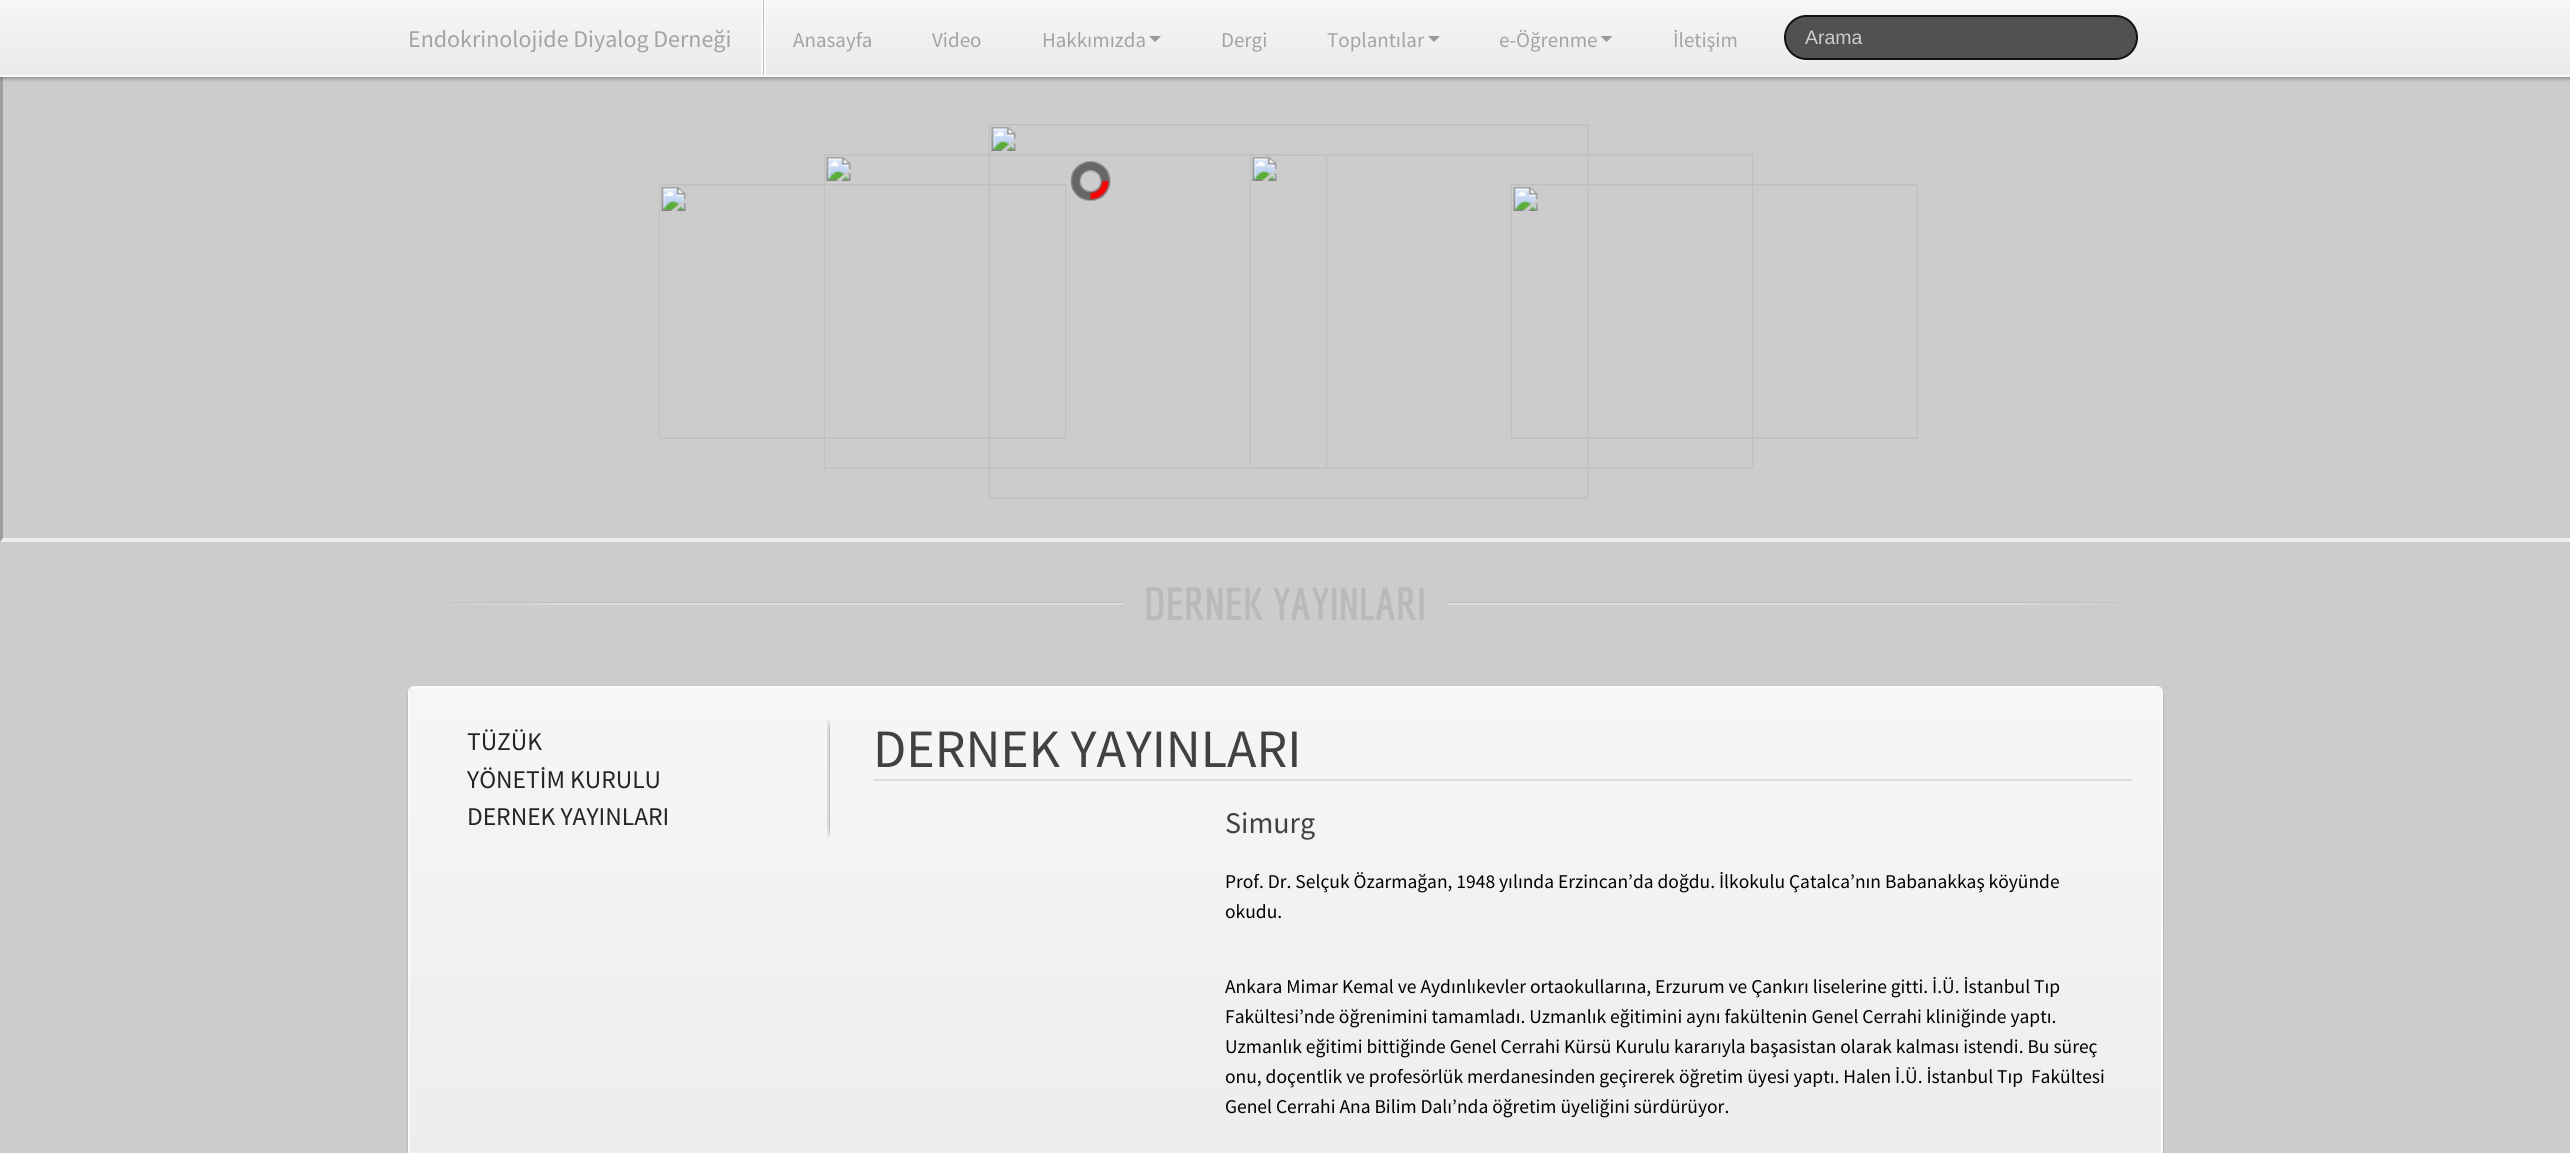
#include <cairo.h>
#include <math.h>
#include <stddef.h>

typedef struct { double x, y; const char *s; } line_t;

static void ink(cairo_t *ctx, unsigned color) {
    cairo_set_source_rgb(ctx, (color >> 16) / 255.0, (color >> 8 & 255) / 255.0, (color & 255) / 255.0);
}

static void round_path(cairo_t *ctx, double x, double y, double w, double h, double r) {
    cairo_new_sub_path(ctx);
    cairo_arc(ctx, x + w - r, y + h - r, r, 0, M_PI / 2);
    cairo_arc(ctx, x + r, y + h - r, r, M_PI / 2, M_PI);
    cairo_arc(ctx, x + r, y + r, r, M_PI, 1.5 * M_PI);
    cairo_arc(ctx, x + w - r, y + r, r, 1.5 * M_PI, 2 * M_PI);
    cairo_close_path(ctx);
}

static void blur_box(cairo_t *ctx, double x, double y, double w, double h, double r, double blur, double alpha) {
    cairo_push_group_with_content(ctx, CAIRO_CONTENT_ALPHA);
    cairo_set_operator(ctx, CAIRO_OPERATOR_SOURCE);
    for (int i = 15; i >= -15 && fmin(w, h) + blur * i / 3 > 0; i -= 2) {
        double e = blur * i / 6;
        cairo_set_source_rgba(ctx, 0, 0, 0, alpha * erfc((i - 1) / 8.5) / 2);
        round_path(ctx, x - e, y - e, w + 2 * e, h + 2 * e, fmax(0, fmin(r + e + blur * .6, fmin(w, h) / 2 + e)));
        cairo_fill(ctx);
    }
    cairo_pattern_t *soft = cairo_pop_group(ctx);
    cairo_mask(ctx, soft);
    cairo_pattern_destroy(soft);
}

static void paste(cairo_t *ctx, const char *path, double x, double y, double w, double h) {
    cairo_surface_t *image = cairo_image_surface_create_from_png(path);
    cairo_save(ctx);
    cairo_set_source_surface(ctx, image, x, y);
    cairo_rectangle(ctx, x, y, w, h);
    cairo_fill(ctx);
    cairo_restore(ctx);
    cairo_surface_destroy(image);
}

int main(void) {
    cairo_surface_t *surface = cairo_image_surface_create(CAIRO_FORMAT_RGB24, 2570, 1153);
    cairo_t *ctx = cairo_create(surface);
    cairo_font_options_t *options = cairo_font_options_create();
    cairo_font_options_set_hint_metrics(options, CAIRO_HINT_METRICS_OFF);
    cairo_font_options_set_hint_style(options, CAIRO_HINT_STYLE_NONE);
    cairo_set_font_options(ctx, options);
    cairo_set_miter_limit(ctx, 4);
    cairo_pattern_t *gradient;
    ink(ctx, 0xCCCCCC);
    cairo_paint(ctx);
    ink(ctx, 0xEEEEEE);
    cairo_new_path(ctx);
    cairo_move_to(ctx, 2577, 542);
    cairo_line_to(ctx, 0, 542);
    cairo_line_to(ctx, 3, 538);
    cairo_line_to(ctx, 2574, 538);
    cairo_close_path(ctx);
    cairo_fill(ctx);
    ink(ctx, 0x9F9F9F);
    cairo_new_path(ctx);
    cairo_move_to(ctx, 0, 542);
    cairo_line_to(ctx, 0, -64);
    cairo_line_to(ctx, 3, -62);
    cairo_line_to(ctx, 3, 538);
    cairo_close_path(ctx);
    cairo_fill(ctx);
    ink(ctx, 0x000000);
    blur_box(ctx, 0, 5, 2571, 76, 0, 1, 0.05);
    blur_box(ctx, 0, 3, 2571, 77, 0, 1, 0.1);
    blur_box(ctx, 0, 2, 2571, 76, 0, 1, 0.15);
    gradient = cairo_pattern_create_linear(1286, 0, 1286, 75);
    cairo_pattern_add_color_stop_rgba(gradient, 0, 0.965, 0.965, 0.965, 1);
    cairo_pattern_add_color_stop_rgba(gradient, 1, 0.918, 0.918, 0.918, 1);
    cairo_set_source(ctx, gradient);
    cairo_pattern_destroy(gradient);
    cairo_rectangle(ctx, 0, 0, 2570, 75);
    cairo_fill(ctx);
    ink(ctx, 0xFAFAFA);
    cairo_rectangle(ctx, 0, 75, 2570, 2);
    cairo_fill(ctx);
    ink(ctx, 0xBFBFBF);
    cairo_rectangle(ctx, 763, 0, 1, 75);
    cairo_fill(ctx);
    cairo_select_font_face(ctx, "Source Sans Pro", CAIRO_FONT_SLANT_NORMAL, CAIRO_FONT_WEIGHT_NORMAL);
    cairo_set_font_size(ctx, 24);
    ink(ctx, 0xA3A3A3);
    cairo_move_to(ctx, 408, 47);
    cairo_show_text(ctx, "Endokrinolojide Diyalog Derneği");
    ink(ctx, 0xFAFAFA);
    cairo_rectangle(ctx, 761, 0, 2, 75);
    cairo_fill(ctx);
    cairo_rectangle(ctx, 764, 0, 2, 75);
    cairo_fill(ctx);
    cairo_set_font_size(ctx, 21);
    ink(ctx, 0xA3A3A3);
    {
        static const line_t items[] = {
            {793, 47, "Anasayfa"},
            {932, 47, "Video"},
            {1042, 47, "Hakkımızda"},
        };
        for (size_t i = 0; i < sizeof items / sizeof *items; i++) {
            cairo_move_to(ctx, items[i].x, items[i].y);
            cairo_show_text(ctx, items[i].s);
        }
    }
    ink(ctx, 0x999999);
    cairo_new_path(ctx);
    cairo_move_to(ctx, 1149, 36);
    cairo_line_to(ctx, 1161, 36);
    cairo_line_to(ctx, 1155, 42);
    cairo_close_path(ctx);
    cairo_fill(ctx);
    ink(ctx, 0xA3A3A3);
    cairo_move_to(ctx, 1221, 47);
    cairo_show_text(ctx, "Dergi");
    cairo_move_to(ctx, 1327, 47);
    cairo_show_text(ctx, "Toplantılar");
    ink(ctx, 0x999999);
    cairo_new_path(ctx);
    cairo_move_to(ctx, 1428, 36);
    cairo_line_to(ctx, 1440, 36);
    cairo_line_to(ctx, 1434, 42);
    cairo_close_path(ctx);
    cairo_fill(ctx);
    ink(ctx, 0xA3A3A3);
    cairo_move_to(ctx, 1499, 47);
    cairo_show_text(ctx, "e-Öğrenme");
    ink(ctx, 0x999999);
    cairo_new_path(ctx);
    cairo_move_to(ctx, 1600.5, 36);
    cairo_line_to(ctx, 1612.5, 36);
    cairo_line_to(ctx, 1606.5, 42);
    cairo_close_path(ctx);
    cairo_fill(ctx);
    ink(ctx, 0xA3A3A3);
    cairo_move_to(ctx, 1673, 47);
    cairo_show_text(ctx, "İletişim");
    cairo_set_source_rgba(ctx, 1, 1, 1, 0.15);
    cairo_new_path(ctx);
    cairo_move_to(ctx, 1784, 44);
    cairo_curve_to(ctx, 1787, 54, 1796, 62, 1806, 62);
    cairo_line_to(ctx, 2116, 62);
    cairo_curve_to(ctx, 2128, 62, 2138, 52, 2138, 40);
    cairo_line_to(ctx, 2137, 33);
    cairo_line_to(ctx, 2138, 38);
    cairo_curve_to(ctx, 2138, 50, 2127, 60, 2115, 60);
    cairo_line_to(ctx, 1806, 60);
    cairo_curve_to(ctx, 1796, 60, 1787, 53, 1784, 44);
    cairo_close_path(ctx);
    cairo_fill(ctx);
    ink(ctx, 0x515151);
    round_path(ctx, 1785, 16, 352, 43, 21.5);
    cairo_fill_preserve(ctx);
    ink(ctx, 0x111111);
    cairo_stroke(ctx);
    cairo_select_font_face(ctx, "Liberation Sans", CAIRO_FONT_SLANT_NORMAL, CAIRO_FONT_WEIGHT_NORMAL);
    cairo_set_font_size(ctx, 19.5);
    ink(ctx, 0xCCCCCC);
    cairo_move_to(ctx, 1805, 44);
    cairo_show_text(ctx, "Arama");
    paste(ctx, "media/1.png", 659, 124, 1259, 375);
    gradient = cairo_pattern_create_linear(408, 602, 2163, 602);
    cairo_pattern_add_color_stop_rgba(gradient, 0, 0.8, 0.8, 0.8, 1);
    cairo_pattern_add_color_stop_rgba(gradient, 0.1, 0.733, 0.733, 0.733, 1);
    cairo_pattern_add_color_stop_rgba(gradient, 0.9, 0.733, 0.733, 0.733, 1);
    cairo_pattern_add_color_stop_rgba(gradient, 1, 0.8, 0.8, 0.8, 1);
    cairo_set_source(ctx, gradient);
    cairo_pattern_destroy(gradient);
    cairo_rectangle(ctx, 434, 602, 1703, 2);
    cairo_fill(ctx);
    gradient = cairo_pattern_create_linear(408, 604, 2163, 604);
    cairo_pattern_add_color_stop_rgba(gradient, 0, 0.867, 0.867, 0.867, 0);
    cairo_pattern_add_color_stop_rgba(gradient, 0.1, 0.867, 0.867, 0.867, 1);
    cairo_pattern_add_color_stop_rgba(gradient, 0.9, 0.867, 0.867, 0.867, 1);
    cairo_pattern_add_color_stop_rgba(gradient, 1, 0.867, 0.867, 0.867, 0);
    cairo_set_source(ctx, gradient);
    cairo_pattern_destroy(gradient);
    cairo_rectangle(ctx, 427, 603, 1717, 2);
    cairo_fill(ctx);
    ink(ctx, 0xCCCCCC);
    cairo_rectangle(ctx, 1122, 602, 327, 3);
    cairo_fill(ctx);
    cairo_select_font_face(ctx, "Economica", CAIRO_FONT_SLANT_NORMAL, CAIRO_FONT_WEIGHT_BOLD);
    cairo_set_font_size(ctx, 45);
    ink(ctx, 0xB9B9B9);
    cairo_move_to(ctx, 1144, 620);
    cairo_show_text(ctx, "DERNEK YAYINLARI");
    ink(ctx, 0x000000);
    blur_box(ctx, 408, 689, 1755, 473, 6, 1, 0.1);
    blur_box(ctx, 408, 687, 1755, 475, 6, 1, 0.15);
    gradient = cairo_pattern_create_linear(1286, 688, 1286, 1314);
    cairo_pattern_add_color_stop_rgba(gradient, 0, 0.965, 0.965, 0.965, 1);
    cairo_pattern_add_color_stop_rgba(gradient, 1, 0.918, 0.918, 0.918, 1);
    cairo_set_source(ctx, gradient);
    cairo_pattern_destroy(gradient);
    cairo_new_path(ctx);
    cairo_move_to(ctx, 414, 688);
    cairo_line_to(ctx, 2157, 688);
    cairo_curve_to(ctx, 2159, 688, 2162, 690, 2162, 692);
    cairo_line_to(ctx, 2162, 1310);
    cairo_curve_to(ctx, 2162, 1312, 2159, 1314, 2157, 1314);
    cairo_line_to(ctx, 414, 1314);
    cairo_curve_to(ctx, 412, 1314, 410, 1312, 410, 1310);
    cairo_line_to(ctx, 410, 692);
    cairo_curve_to(ctx, 410, 690, 412, 688, 414, 688);
    cairo_close_path(ctx);
    cairo_fill(ctx);
    round_path(ctx, 409, 687, 1753, 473, 5);
    ink(ctx, 0xFAFAFA);
    cairo_stroke(ctx);
    cairo_rectangle(ctx, 411, 688, 1749, 1);
    cairo_fill(ctx);
    gradient = cairo_pattern_create_linear(829, 719, 829, 839);
    cairo_pattern_add_color_stop_rgba(gradient, 0, 0.957, 0.957, 0.957, 1);
    cairo_pattern_add_color_stop_rgba(gradient, 0.1, 0.733, 0.733, 0.733, 1);
    cairo_pattern_add_color_stop_rgba(gradient, 0.9, 0.733, 0.733, 0.733, 1);
    cairo_pattern_add_color_stop_rgba(gradient, 1, 0.957, 0.957, 0.957, 1);
    cairo_set_source(ctx, gradient);
    cairo_pattern_destroy(gradient);
    cairo_rectangle(ctx, 828, 719, 2, 120);
    cairo_fill(ctx);
    gradient = cairo_pattern_create_linear(827, 719, 827, 839);
    cairo_pattern_add_color_stop_rgba(gradient, 0, 0.867, 0.867, 0.867, 0);
    cairo_pattern_add_color_stop_rgba(gradient, 0.1, 0.867, 0.867, 0.867, 1);
    cairo_pattern_add_color_stop_rgba(gradient, 0.9, 0.867, 0.867, 0.867, 1);
    cairo_pattern_add_color_stop_rgba(gradient, 1, 0.867, 0.867, 0.867, 0);
    cairo_set_source(ctx, gradient);
    cairo_pattern_destroy(gradient);
    cairo_rectangle(ctx, 827, 719, 2, 120);
    cairo_fill(ctx);
    cairo_select_font_face(ctx, "Source Sans Pro", CAIRO_FONT_SLANT_NORMAL, CAIRO_FONT_WEIGHT_NORMAL);
    cairo_set_font_size(ctx, 25.5);
    ink(ctx, 0x242424);
    {
        static const line_t items[] = {
            {467, 750, "TÜZÜK"},
            {467, 788, "YÖNETİM KURULU"},
            {467, 825, "DERNEK YAYINLARI"},
        };
        for (size_t i = 0; i < sizeof items / sizeof *items; i++) {
            cairo_move_to(ctx, items[i].x, items[i].y);
            cairo_show_text(ctx, items[i].s);
        }
    }
    cairo_set_font_size(ctx, 54);
    ink(ctx, 0x414141);
    cairo_move_to(ctx, 873, 767);
    cairo_show_text(ctx, "DERNEK YAYINLARI");
    ink(ctx, 0xDDDDDD);
    cairo_rectangle(ctx, 873, 779, 1259, 2);
    cairo_fill(ctx);
    cairo_set_font_size(ctx, 30);
    ink(ctx, 0x414141);
    cairo_move_to(ctx, 1225, 833);
    cairo_show_text(ctx, "Simurg");
    cairo_set_font_size(ctx, 19.5);
    ink(ctx, 0x000000);
    {
        static const line_t items[] = {
            {1225, 888, "Prof. Dr. Selçuk Özarmağan, 1948 yılında Erzincan’da doğdu. İlkokulu Çatalca’nın Babanakkaş köyünde"},
            {1225, 918, "okudu."},
            {1225, 993, "Ankara Mimar Kemal ve Aydınlıkevler ortaokullarına, Erzurum ve Çankırı liselerine gitti. İ.Ü. İstanbul Tıp"},
            {1225, 1023, "Fakültesi’nde öğrenimini tamamladı. Uzmanlık eğitimini aynı fakültenin Genel Cerrahi kliniğinde yaptı."},
            {1225, 1053, "Uzmanlık eğitimi bittiğinde Genel Cerrahi Kürsü Kurulu kararıyla başasistan olarak kalması istendi. Bu süreç"},
            {1225, 1083, "onu, doçentlik ve profesörlük merdanesinden geçirerek öğretim üyesi yaptı. Halen İ.Ü. İstanbul Tıp  Fakültesi"},
            {1225, 1113, "Genel Cerrahi Ana Bilim Dalı’nda öğretim üyeliğini sürdürüyor."},
        };
        for (size_t i = 0; i < sizeof items / sizeof *items; i++) {
            cairo_move_to(ctx, items[i].x, items[i].y);
            cairo_show_text(ctx, items[i].s);
        }
    }
    cairo_surface_write_to_png(surface, "image.png");
    cairo_font_options_destroy(options);
    cairo_destroy(ctx);
    cairo_surface_destroy(surface);
    return 0;
}
